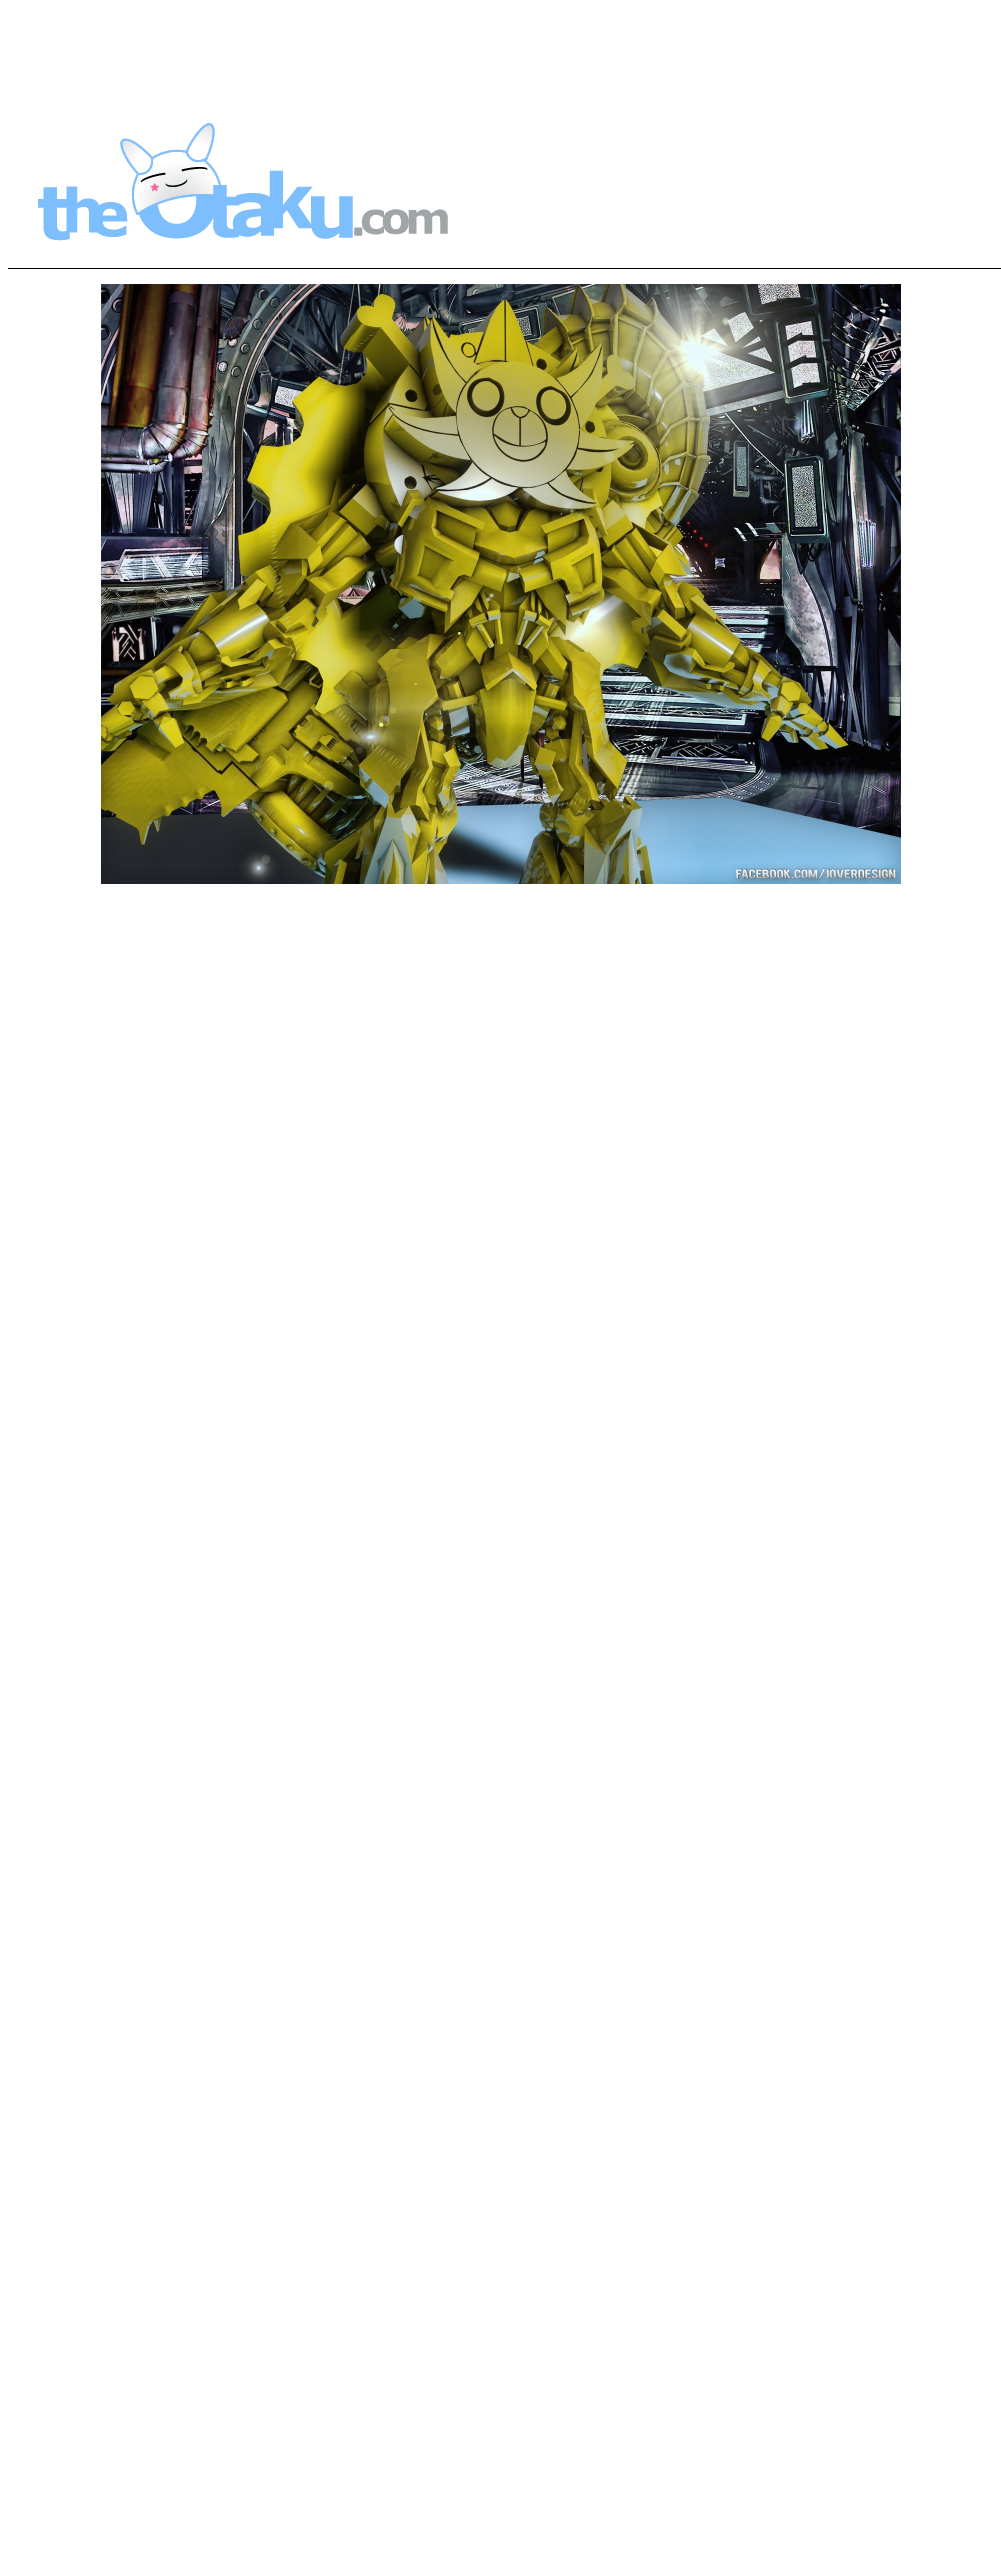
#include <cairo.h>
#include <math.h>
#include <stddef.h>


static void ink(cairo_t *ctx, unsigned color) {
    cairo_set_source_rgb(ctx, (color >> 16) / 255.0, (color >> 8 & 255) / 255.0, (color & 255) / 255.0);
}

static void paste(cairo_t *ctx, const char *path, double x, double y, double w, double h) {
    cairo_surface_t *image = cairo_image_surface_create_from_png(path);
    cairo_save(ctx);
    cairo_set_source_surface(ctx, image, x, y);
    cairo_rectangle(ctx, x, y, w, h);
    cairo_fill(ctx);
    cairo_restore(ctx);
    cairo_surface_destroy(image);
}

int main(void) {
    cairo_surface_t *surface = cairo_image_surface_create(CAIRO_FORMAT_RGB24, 1001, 2556);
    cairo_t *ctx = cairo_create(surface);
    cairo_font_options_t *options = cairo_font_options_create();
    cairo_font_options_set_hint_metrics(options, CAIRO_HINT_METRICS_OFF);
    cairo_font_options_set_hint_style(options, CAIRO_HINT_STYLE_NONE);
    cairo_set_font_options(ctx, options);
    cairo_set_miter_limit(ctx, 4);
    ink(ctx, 0xFFFFFF);
    cairo_paint(ctx);
    ink(ctx, 0x000000);
    cairo_rectangle(ctx, 8, 268, 993, 1);
    cairo_fill(ctx);
    paste(ctx, "media/1.png", 38, 123, 410, 118);
    paste(ctx, "media/2.png", 101, 284, 800, 600);
    cairo_surface_write_to_png(surface, "image.png");
    cairo_font_options_destroy(options);
    cairo_destroy(ctx);
    cairo_surface_destroy(surface);
    return 0;
}
